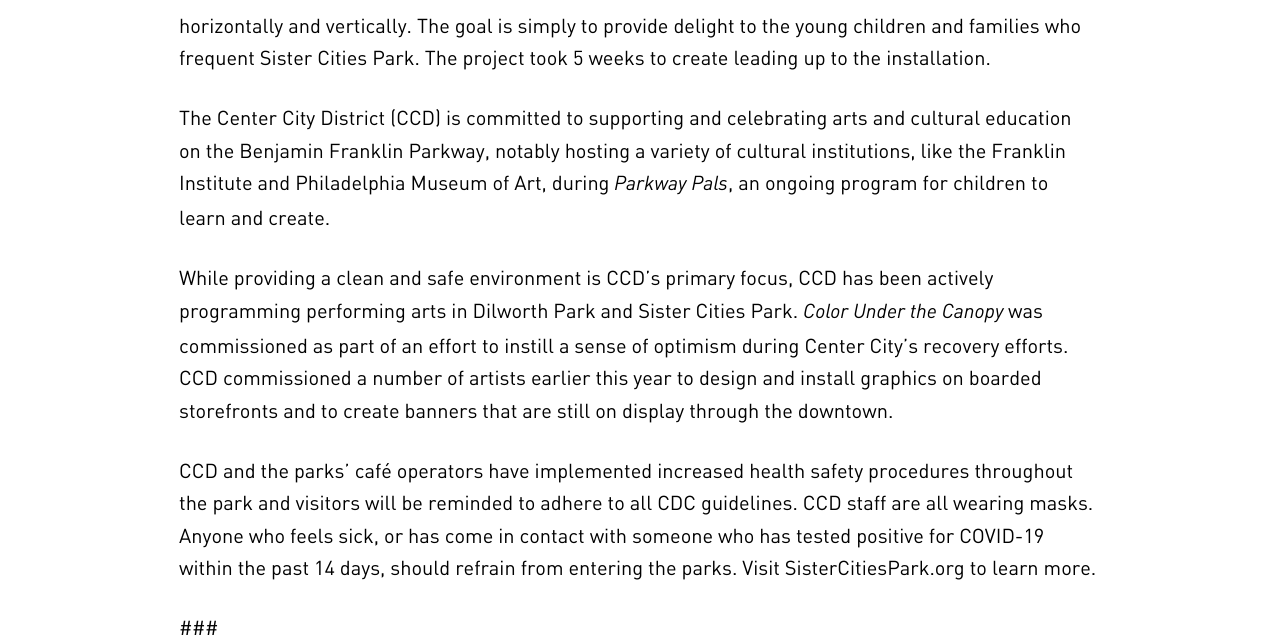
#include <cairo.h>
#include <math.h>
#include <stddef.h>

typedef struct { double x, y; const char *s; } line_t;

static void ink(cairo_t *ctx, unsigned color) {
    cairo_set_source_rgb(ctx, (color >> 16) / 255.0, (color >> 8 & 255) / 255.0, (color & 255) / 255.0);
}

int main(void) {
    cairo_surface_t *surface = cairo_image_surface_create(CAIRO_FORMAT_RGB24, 1276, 643);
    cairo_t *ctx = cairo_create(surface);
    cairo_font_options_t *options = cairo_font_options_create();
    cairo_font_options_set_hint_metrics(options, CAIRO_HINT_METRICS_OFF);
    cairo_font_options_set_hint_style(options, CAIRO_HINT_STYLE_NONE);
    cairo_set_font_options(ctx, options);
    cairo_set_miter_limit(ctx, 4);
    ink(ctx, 0xFFFFFF);
    cairo_paint(ctx);
    cairo_select_font_face(ctx, "DIN", CAIRO_FONT_SLANT_NORMAL, CAIRO_FONT_WEIGHT_NORMAL);
    cairo_set_font_size(ctx, 20);
    ink(ctx, 0x000000);
    {
        static const line_t items[] = {
            {179, 33, "horizontally and vertically. The goal is simply to provide delight to the young children and families who"},
            {179, 65, "frequent Sister Cities Park. The project took 5 weeks to create leading up to the installation."},
            {179, 125, "The Center City District (CCD) is committed to supporting and celebrating arts and cultural education"},
            {179, 158, "on the Benjamin Franklin Parkway, notably hosting a variety of cultural institutions, like the Franklin"},
            {179, 190, "Institute and Philadelphia Museum of Art, during"},
        };
        for (size_t i = 0; i < sizeof items / sizeof *items; i++) {
            cairo_move_to(ctx, items[i].x, items[i].y);
            cairo_show_text(ctx, items[i].s);
        }
    }
    cairo_select_font_face(ctx, "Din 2", CAIRO_FONT_SLANT_NORMAL, CAIRO_FONT_WEIGHT_NORMAL);
    cairo_move_to(ctx, 614, 190);
    cairo_show_text(ctx, "Parkway Pals");
    cairo_select_font_face(ctx, "DIN", CAIRO_FONT_SLANT_NORMAL, CAIRO_FONT_WEIGHT_NORMAL);
    {
        static const line_t items[] = {
            {728, 190, ", an ongoing program for children to"},
            {179, 225, "learn and create."},
            {179, 285, "While providing a clean and safe environment is CCD’s primary focus, CCD has been actively"},
            {179, 318, "programming performing arts in Dilworth Park and Sister Cities Park."},
        };
        for (size_t i = 0; i < sizeof items / sizeof *items; i++) {
            cairo_move_to(ctx, items[i].x, items[i].y);
            cairo_show_text(ctx, items[i].s);
        }
    }
    cairo_select_font_face(ctx, "Din 2", CAIRO_FONT_SLANT_NORMAL, CAIRO_FONT_WEIGHT_NORMAL);
    cairo_move_to(ctx, 803, 318);
    cairo_show_text(ctx, "Color Under the Canopy");
    cairo_select_font_face(ctx, "DIN", CAIRO_FONT_SLANT_NORMAL, CAIRO_FONT_WEIGHT_NORMAL);
    {
        static const line_t items[] = {
            {1008, 318, "was"},
            {179, 353, "commissioned as part of an effort to instill a sense of optimism during Center City’s recovery efforts."},
            {179, 385, "CCD commissioned a number of artists earlier this year to design and install graphics on boarded"},
            {179, 418, "storefronts and to create banners that are still on display through the downtown."},
            {179, 478, "CCD and the parks’ café operators have implemented increased health safety procedures throughout"},
            {179, 510, "the park and visitors will be reminded to adhere to all CDC guidelines. CCD staff are all wearing masks."},
            {179, 543, "Anyone who feels sick, or has come in contact with someone who has tested positive for COVID-19"},
            {179, 575, "within the past 14 days, should refrain from entering the parks. Visit SisterCitiesPark.org to learn more."},
            {179, 635, "###"},
        };
        for (size_t i = 0; i < sizeof items / sizeof *items; i++) {
            cairo_move_to(ctx, items[i].x, items[i].y);
            cairo_show_text(ctx, items[i].s);
        }
    }
    cairo_surface_write_to_png(surface, "image.png");
    cairo_font_options_destroy(options);
    cairo_destroy(ctx);
    cairo_surface_destroy(surface);
    return 0;
}
